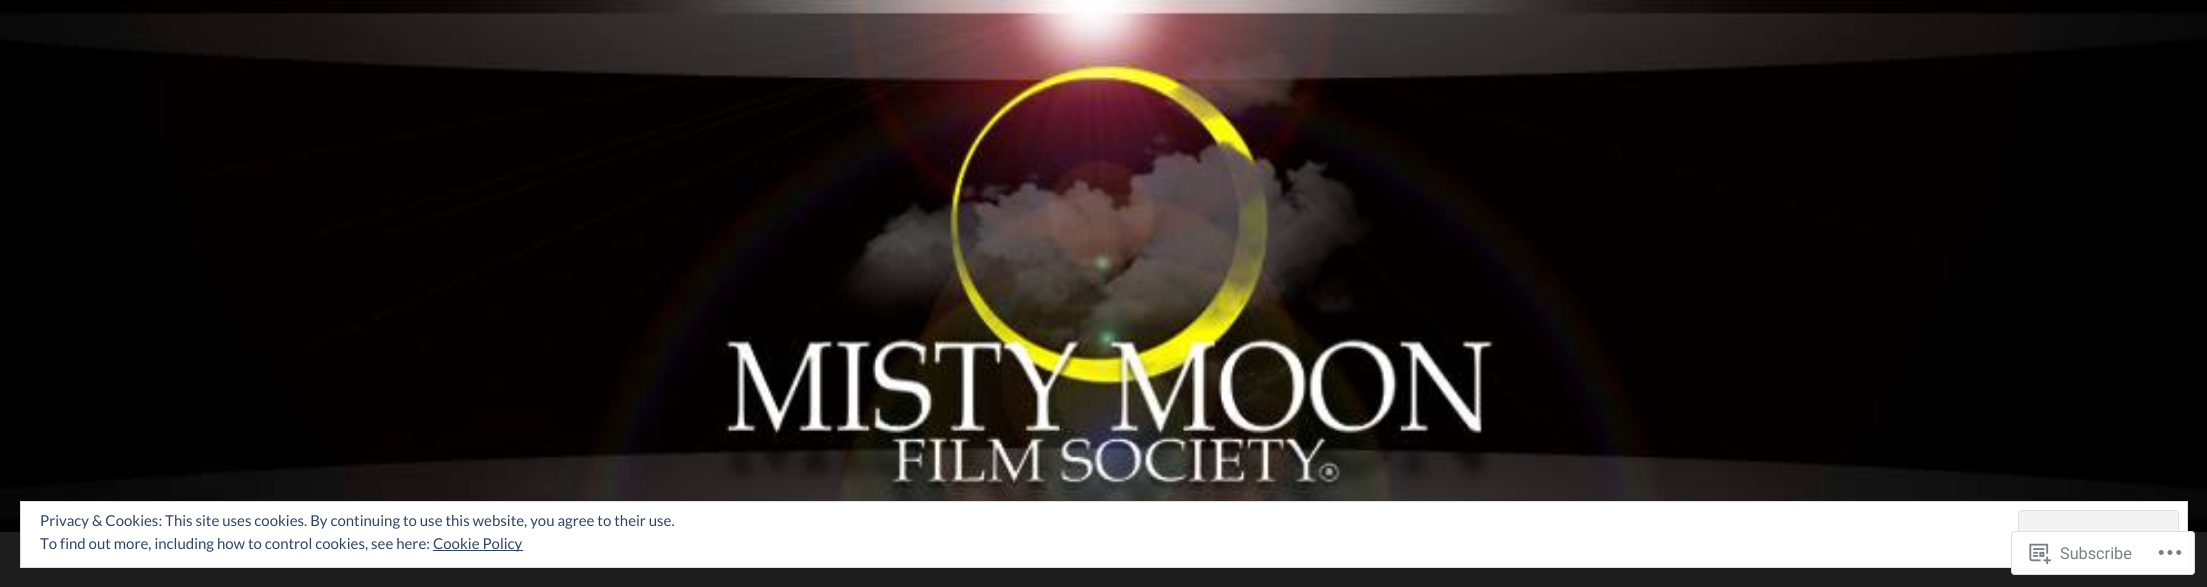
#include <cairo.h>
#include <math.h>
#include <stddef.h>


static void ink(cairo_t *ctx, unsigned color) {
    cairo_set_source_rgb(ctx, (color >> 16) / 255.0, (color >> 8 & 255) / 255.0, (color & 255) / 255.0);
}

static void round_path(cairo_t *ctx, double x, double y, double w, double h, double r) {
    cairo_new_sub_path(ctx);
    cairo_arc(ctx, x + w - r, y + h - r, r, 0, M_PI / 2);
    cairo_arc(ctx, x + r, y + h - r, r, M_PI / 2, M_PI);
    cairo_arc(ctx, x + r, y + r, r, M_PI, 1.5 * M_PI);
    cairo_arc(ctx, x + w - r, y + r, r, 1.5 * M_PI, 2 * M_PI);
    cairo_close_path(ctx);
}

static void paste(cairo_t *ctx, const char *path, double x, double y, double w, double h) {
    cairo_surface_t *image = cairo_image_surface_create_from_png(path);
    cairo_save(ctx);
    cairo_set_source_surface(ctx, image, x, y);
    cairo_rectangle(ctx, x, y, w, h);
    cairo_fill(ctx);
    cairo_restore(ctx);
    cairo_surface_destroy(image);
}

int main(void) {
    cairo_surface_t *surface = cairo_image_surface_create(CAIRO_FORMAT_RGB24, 2207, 587);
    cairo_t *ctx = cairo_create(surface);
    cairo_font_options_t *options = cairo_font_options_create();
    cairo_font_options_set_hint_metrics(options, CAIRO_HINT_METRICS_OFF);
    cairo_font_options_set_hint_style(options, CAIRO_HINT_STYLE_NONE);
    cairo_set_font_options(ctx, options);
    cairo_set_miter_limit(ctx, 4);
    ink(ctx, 0x262626);
    cairo_paint(ctx);
    paste(ctx, "media/1.png", 0, 0, 2207, 533);
    ink(ctx, 0x1D1D1D);
    cairo_rectangle(ctx, 0, 533, 2207, 54);
    cairo_fill(ctx);
    ink(ctx, 0xFFFFFF);
    cairo_rectangle(ctx, 20.5, 501.5, 2167, 66);
    cairo_fill_preserve(ctx);
    ink(ctx, 0xDEDEDE);
    cairo_set_line_width(ctx, 1);
    cairo_stroke(ctx);
    cairo_select_font_face(ctx, "Lato", CAIRO_FONT_SLANT_NORMAL, CAIRO_FONT_WEIGHT_NORMAL);
    cairo_set_font_size(ctx, 15);
    ink(ctx, 0x2E4467);
    cairo_move_to(ctx, 40, 526);
    cairo_show_text(ctx, "Privacy & Cookies: This site uses cookies. By continuing to use this website, you agree to their use.");
    ink(ctx, 0xF3F3F3);
    round_path(ctx, 2018.5, 510.5, 160, 48, 3.5);
    cairo_fill_preserve(ctx);
    ink(ctx, 0xDEDEDE);
    cairo_stroke(ctx);
    ink(ctx, 0x2E4467);
    cairo_move_to(ctx, 40, 549);
    cairo_show_text(ctx, "To find out more, including how to control cookies, see here:");
    cairo_rectangle(ctx, 433, 550, 90, 1);
    cairo_fill(ctx);
    cairo_move_to(ctx, 433, 549);
    cairo_show_text(ctx, "Cookie Policy");
    cairo_set_source_rgba(ctx, 1, 1, 1, 0.98);
    round_path(ctx, 2011, 531, 184, 44, 4);
    cairo_fill(ctx);
    round_path(ctx, 2011.5, 531.5, 183, 43, 3.5);
    cairo_set_source_rgba(ctx, 0.863, 0.863, 0.871, 0.98);
    cairo_stroke(ctx);
    paste(ctx, "media/2.png", 2029, 543, 22, 22);
    cairo_select_font_face(ctx, "Roboto", CAIRO_FONT_SLANT_NORMAL, CAIRO_FONT_WEIGHT_NORMAL);
    cairo_set_font_size(ctx, 16.25);
    ink(ctx, 0x7B7F84);
    cairo_move_to(ctx, 2060, 559);
    cairo_show_text(ctx, "Subscribe");
    paste(ctx, "media/3.png", 2158, 550, 24, 5);
    cairo_surface_write_to_png(surface, "image.png");
    cairo_font_options_destroy(options);
    cairo_destroy(ctx);
    cairo_surface_destroy(surface);
    return 0;
}
